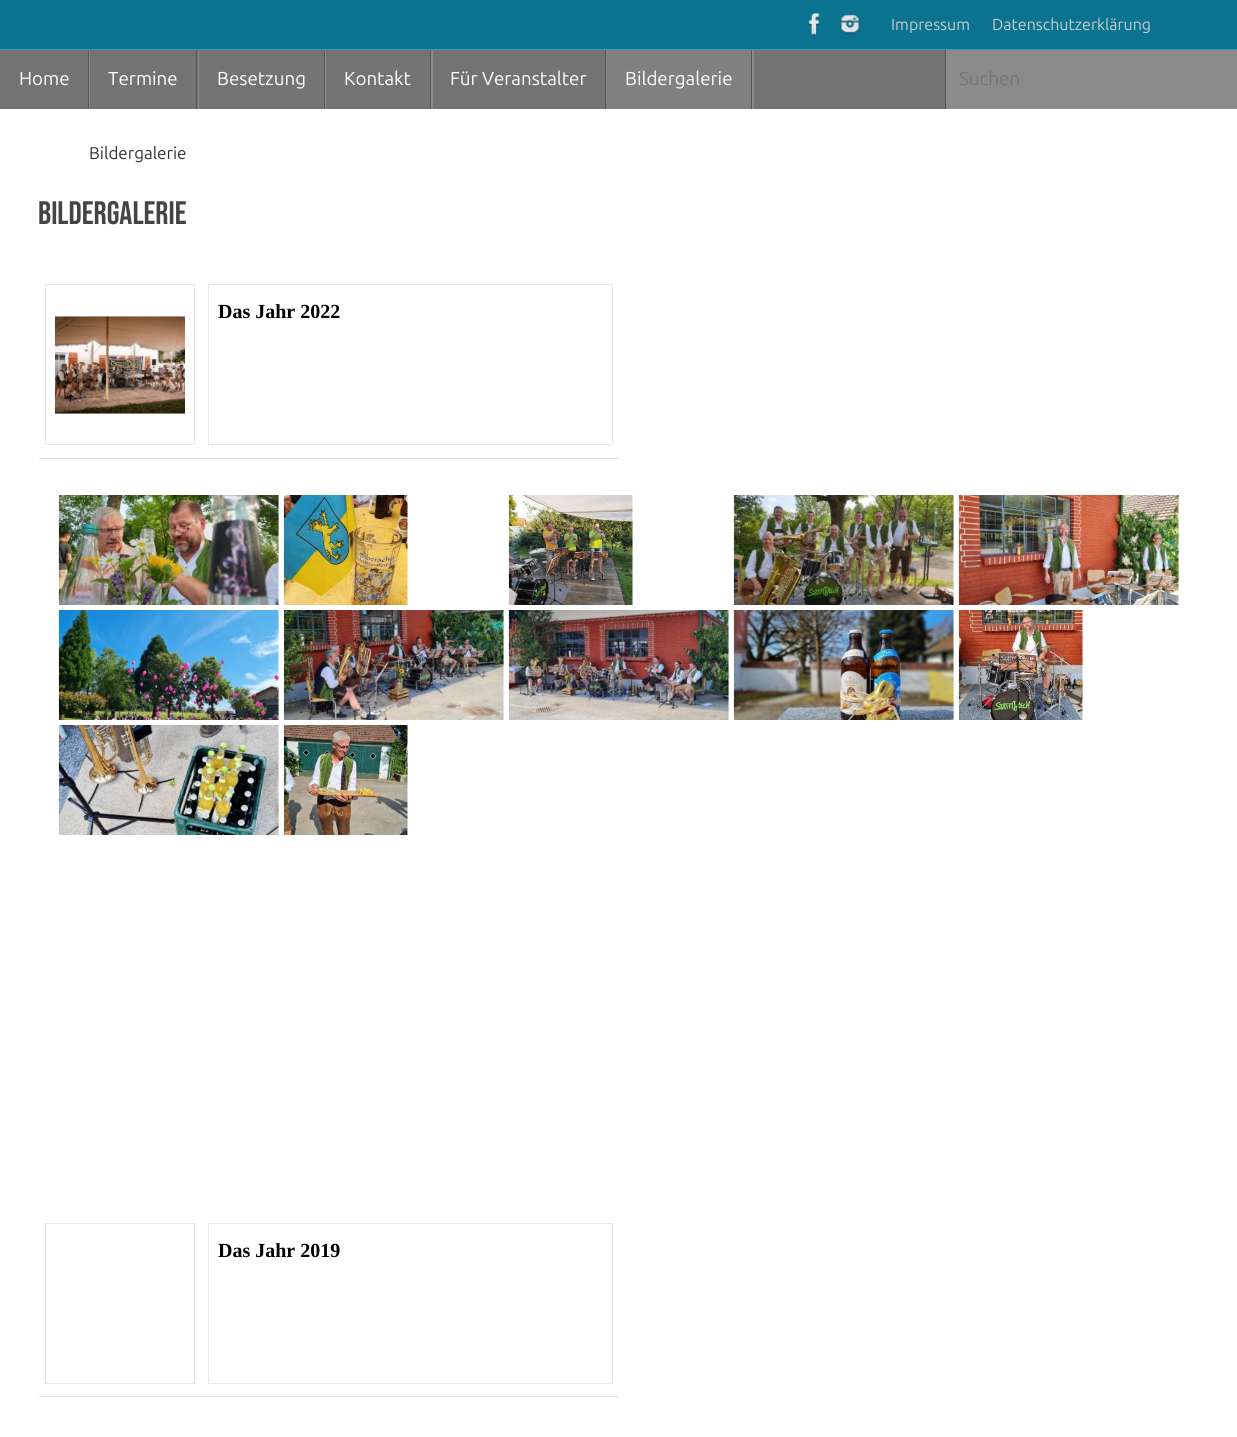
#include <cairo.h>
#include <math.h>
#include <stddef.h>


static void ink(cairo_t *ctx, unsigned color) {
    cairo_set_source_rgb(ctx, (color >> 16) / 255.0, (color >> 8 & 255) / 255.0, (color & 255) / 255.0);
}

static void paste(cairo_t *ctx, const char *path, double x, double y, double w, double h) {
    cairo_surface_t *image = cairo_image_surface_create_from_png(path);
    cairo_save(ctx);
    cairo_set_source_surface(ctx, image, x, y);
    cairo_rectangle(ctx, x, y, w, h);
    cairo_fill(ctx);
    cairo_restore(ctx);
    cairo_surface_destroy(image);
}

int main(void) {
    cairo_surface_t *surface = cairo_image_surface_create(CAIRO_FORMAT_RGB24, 1237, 1437);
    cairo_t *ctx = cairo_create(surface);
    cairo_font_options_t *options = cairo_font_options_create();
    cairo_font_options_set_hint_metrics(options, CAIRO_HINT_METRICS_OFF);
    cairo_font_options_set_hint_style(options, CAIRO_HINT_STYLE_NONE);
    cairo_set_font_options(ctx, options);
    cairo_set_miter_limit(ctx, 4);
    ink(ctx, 0x0A7390);
    cairo_paint(ctx);
    ink(ctx, 0x329BB8);
    cairo_rectangle(ctx, 0, 49, 1237, 1);
    cairo_fill(ctx);
    paste(ctx, "media/1.png", 808, 13, 12, 24);
    paste(ctx, "media/2.png", 840, 15, 20, 20);
    cairo_select_font_face(ctx, "Ubuntu", CAIRO_FONT_SLANT_NORMAL, CAIRO_FONT_WEIGHT_NORMAL);
    cairo_set_font_size(ctx, 16);
    ink(ctx, 0xCCCCCC);
    cairo_move_to(ctx, 891, 30);
    cairo_show_text(ctx, "Impressum");
    cairo_move_to(ctx, 992, 30);
    cairo_show_text(ctx, "Datenschutzerklärung");
    ink(ctx, 0x737373);
    cairo_rectangle(ctx, 0, 50, 945, 59);
    cairo_fill(ctx);
    ink(ctx, 0x8B8B8B);
    cairo_new_path(ctx);
    cairo_move_to(ctx, 1, 109);
    cairo_line_to(ctx, 90, 109);
    cairo_line_to(ctx, 90, 50);
    cairo_line_to(ctx, 89, 50);
    cairo_line_to(ctx, 89, 109);
    cairo_close_path(ctx);
    cairo_fill(ctx);
    ink(ctx, 0x555555);
    cairo_rectangle(ctx, 88, 50, 1, 59);
    cairo_fill(ctx);
    cairo_set_font_size(ctx, 18.75);
    ink(ctx, 0xFFFFFF);
    cairo_move_to(ctx, 19, 85);
    cairo_show_text(ctx, "Home");
    ink(ctx, 0x8B8B8B);
    cairo_new_path(ctx);
    cairo_move_to(ctx, 90, 109);
    cairo_line_to(ctx, 199, 109);
    cairo_line_to(ctx, 199, 50);
    cairo_line_to(ctx, 198, 50);
    cairo_line_to(ctx, 198, 109);
    cairo_close_path(ctx);
    cairo_fill(ctx);
    ink(ctx, 0x555555);
    cairo_rectangle(ctx, 196, 50, 1, 59);
    cairo_fill(ctx);
    ink(ctx, 0xFFFFFF);
    cairo_move_to(ctx, 108, 85);
    cairo_show_text(ctx, "Termine");
    ink(ctx, 0x8B8B8B);
    cairo_new_path(ctx);
    cairo_move_to(ctx, 199, 109);
    cairo_line_to(ctx, 326, 109);
    cairo_line_to(ctx, 326, 50);
    cairo_line_to(ctx, 325, 50);
    cairo_line_to(ctx, 325, 109);
    cairo_close_path(ctx);
    cairo_fill(ctx);
    ink(ctx, 0x555555);
    cairo_rectangle(ctx, 324, 50, 1, 59);
    cairo_fill(ctx);
    ink(ctx, 0xFFFFFF);
    cairo_move_to(ctx, 217, 85);
    cairo_show_text(ctx, "Besetzung");
    ink(ctx, 0x8B8B8B);
    cairo_new_path(ctx);
    cairo_move_to(ctx, 326, 109);
    cairo_line_to(ctx, 433, 109);
    cairo_line_to(ctx, 433, 50);
    cairo_line_to(ctx, 431, 50);
    cairo_line_to(ctx, 431, 109);
    cairo_close_path(ctx);
    cairo_fill(ctx);
    ink(ctx, 0x555555);
    cairo_rectangle(ctx, 430, 50, 1, 59);
    cairo_fill(ctx);
    ink(ctx, 0xFFFFFF);
    cairo_move_to(ctx, 344, 85);
    cairo_show_text(ctx, "Kontakt");
    ink(ctx, 0x555555);
    cairo_rectangle(ctx, 605, 50, 1, 59);
    cairo_fill(ctx);
    ink(ctx, 0xFFFFFF);
    cairo_move_to(ctx, 450, 85);
    cairo_show_text(ctx, "Für Veranstalter");
    ink(ctx, 0x808080);
    cairo_rectangle(ctx, 606, 50, 145, 59);
    cairo_fill(ctx);
    ink(ctx, 0x8B8B8B);
    cairo_new_path(ctx);
    cairo_move_to(ctx, 608, 109);
    cairo_line_to(ctx, 754, 109);
    cairo_line_to(ctx, 754, 50);
    cairo_line_to(ctx, 752, 50);
    cairo_line_to(ctx, 752, 109);
    cairo_close_path(ctx);
    cairo_fill(ctx);
    ink(ctx, 0x555555);
    cairo_rectangle(ctx, 751, 50, 1, 59);
    cairo_fill(ctx);
    ink(ctx, 0xFFFFFF);
    cairo_move_to(ctx, 625, 85);
    cairo_show_text(ctx, "Bildergalerie");
    ink(ctx, 0x8B8B8B);
    cairo_rectangle(ctx, 946, 50, 291, 59);
    cairo_fill(ctx);
    ink(ctx, 0x555555);
    cairo_rectangle(ctx, 945, 50, 1, 59);
    cairo_fill(ctx);
    ink(ctx, 0x757575);
    cairo_move_to(ctx, 959, 85);
    cairo_show_text(ctx, "Suchen");
    ink(ctx, 0xFFFFFF);
    cairo_rectangle(ctx, 0, 109, 1237, 1328);
    cairo_fill(ctx);
    cairo_set_font_size(ctx, 17);
    ink(ctx, 0x333333);
    cairo_move_to(ctx, 89, 159);
    cairo_show_text(ctx, "Bildergalerie");
    cairo_select_font_face(ctx, "Bebas Neue", CAIRO_FONT_SLANT_NORMAL, CAIRO_FONT_WEIGHT_NORMAL);
    cairo_set_font_size(ctx, 32.5);
    ink(ctx, 0x444444);
    cairo_move_to(ctx, 38, 224);
    cairo_show_text(ctx, "Bildergalerie");
    ink(ctx, 0xE0E0E0);
    cairo_rectangle(ctx, 39, 458, 580, 1);
    cairo_fill(ctx);
    cairo_rectangle(ctx, 45.5, 284.5, 149, 160);
    ink(ctx, 0xE8E8E8);
    cairo_set_line_width(ctx, 1);
    cairo_stroke(ctx);
    paste(ctx, "media/3.png", 55, 316, 130, 98);
    cairo_rectangle(ctx, 208.5, 284.5, 404, 160);
    cairo_stroke(ctx);
    cairo_select_font_face(ctx, "Liberation Serif", CAIRO_FONT_SLANT_NORMAL, CAIRO_FONT_WEIGHT_BOLD);
    cairo_set_font_size(ctx, 20);
    ink(ctx, 0x000000);
    cairo_move_to(ctx, 218, 318);
    cairo_show_text(ctx, "Das Jahr 2022");
    paste(ctx, "media/4.png", 58, 495, 221, 110);
    paste(ctx, "media/5.png", 283, 495, 125, 110);
    paste(ctx, "media/6.png", 508, 495, 125, 110);
    paste(ctx, "media/7.png", 733, 495, 221, 110);
    paste(ctx, "media/8.png", 958, 495, 221, 110);
    paste(ctx, "media/9.png", 58, 610, 221, 110);
    paste(ctx, "media/10.png", 283, 610, 221, 110);
    paste(ctx, "media/11.png", 508, 610, 221, 110);
    paste(ctx, "media/12.png", 733, 610, 221, 110);
    paste(ctx, "media/13.png", 958, 610, 125, 110);
    paste(ctx, "media/14.png", 58, 725, 221, 110);
    paste(ctx, "media/15.png", 283, 725, 125, 110);
    ink(ctx, 0xE0E0E0);
    cairo_rectangle(ctx, 39, 1396, 580, 1);
    cairo_fill(ctx);
    cairo_rectangle(ctx, 45.5, 1223.5, 149, 160);
    ink(ctx, 0xE8E8E8);
    cairo_stroke(ctx);
    cairo_rectangle(ctx, 208.5, 1223.5, 404, 160);
    cairo_stroke(ctx);
    ink(ctx, 0x000000);
    cairo_move_to(ctx, 218, 1257);
    cairo_show_text(ctx, "Das Jahr 2019");
    cairo_surface_write_to_png(surface, "image.png");
    cairo_font_options_destroy(options);
    cairo_destroy(ctx);
    cairo_surface_destroy(surface);
    return 0;
}
